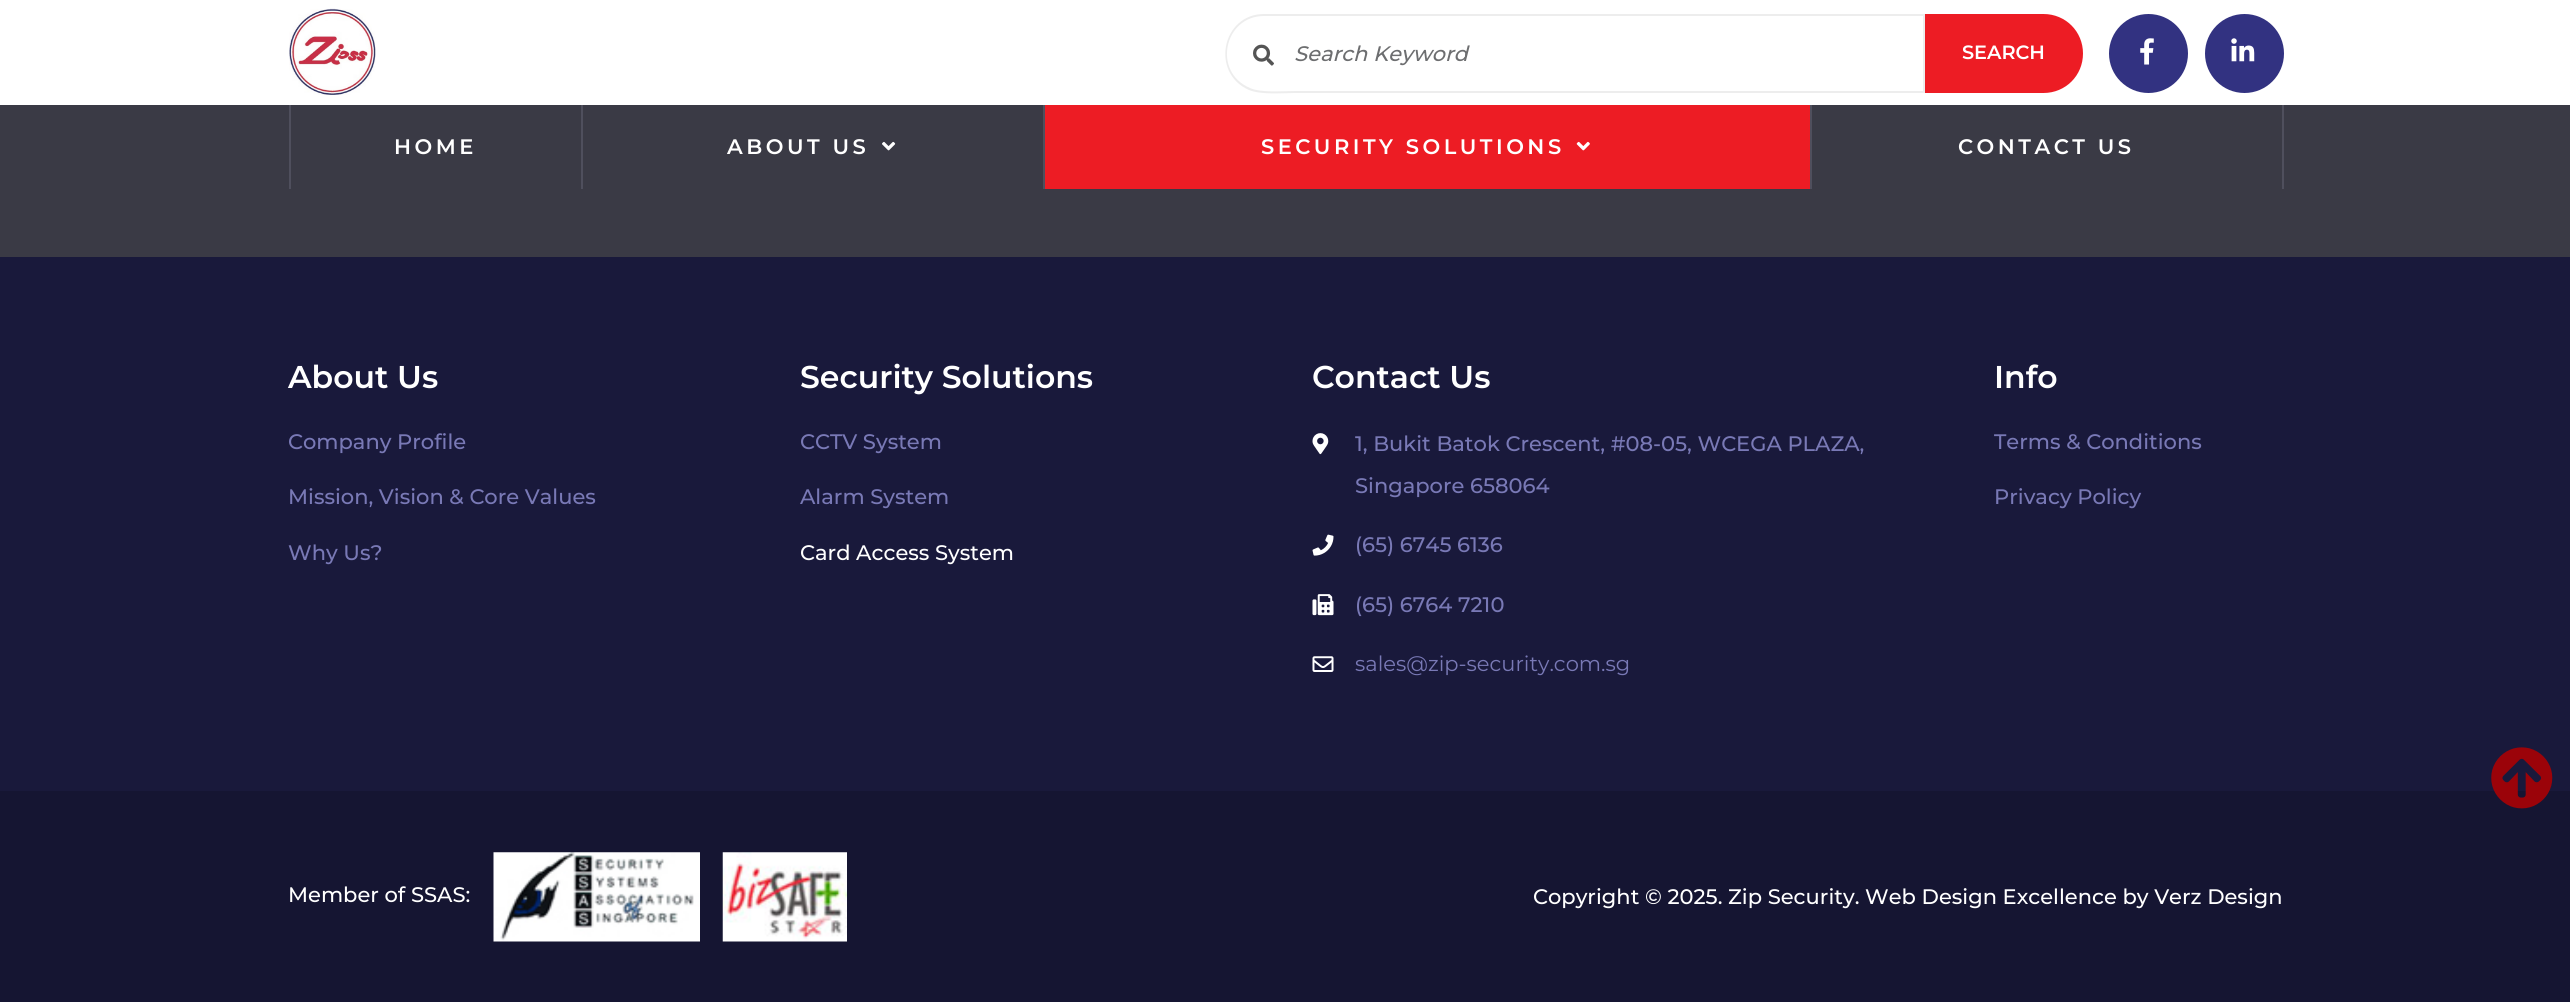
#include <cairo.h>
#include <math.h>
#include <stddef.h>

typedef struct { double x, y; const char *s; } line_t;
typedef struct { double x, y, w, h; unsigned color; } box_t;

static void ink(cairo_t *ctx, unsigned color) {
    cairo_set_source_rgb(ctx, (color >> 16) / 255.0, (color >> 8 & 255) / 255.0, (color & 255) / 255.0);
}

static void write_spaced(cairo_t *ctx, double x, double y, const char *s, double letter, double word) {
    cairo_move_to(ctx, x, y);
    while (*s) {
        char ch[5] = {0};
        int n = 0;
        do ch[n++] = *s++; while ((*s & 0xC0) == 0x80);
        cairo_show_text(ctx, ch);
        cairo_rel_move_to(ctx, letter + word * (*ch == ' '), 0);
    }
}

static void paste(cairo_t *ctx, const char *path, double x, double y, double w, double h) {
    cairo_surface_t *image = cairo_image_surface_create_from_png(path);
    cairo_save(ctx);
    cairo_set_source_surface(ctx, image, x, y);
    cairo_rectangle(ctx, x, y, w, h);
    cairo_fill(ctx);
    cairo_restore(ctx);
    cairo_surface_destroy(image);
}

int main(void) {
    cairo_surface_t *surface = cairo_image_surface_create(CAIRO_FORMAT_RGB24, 2570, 1002);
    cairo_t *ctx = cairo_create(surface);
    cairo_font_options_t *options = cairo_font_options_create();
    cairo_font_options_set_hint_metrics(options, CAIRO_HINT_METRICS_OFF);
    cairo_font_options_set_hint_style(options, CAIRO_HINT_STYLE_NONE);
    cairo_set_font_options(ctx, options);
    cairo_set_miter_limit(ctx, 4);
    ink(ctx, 0x3A3A45);
    cairo_paint(ctx);
    ink(ctx, 0xFFFFFF);
    cairo_rectangle(ctx, 0, 0, 2570, 105);
    cairo_fill(ctx);
    paste(ctx, "media/1.png", 289, 8, 87, 87);
    ink(ctx, 0xEDEDED);
    cairo_set_fill_rule(ctx, CAIRO_FILL_RULE_EVEN_ODD);
    cairo_new_path(ctx);
    cairo_move_to(ctx, 1264, 14);
    cairo_line_to(ctx, 1295, 14);
    cairo_line_to(ctx, 1295, 93);
    cairo_curve_to(ctx, 1282, 93, 1261, 95, 1249, 90);
    cairo_curve_to(ctx, 1210, 73, 1222, 14, 1264, 14);
    cairo_close_path(ctx);
    cairo_move_to(ctx, 1264, 16);
    cairo_line_to(ctx, 1295, 16);
    cairo_line_to(ctx, 1295, 91);
    cairo_curve_to(ctx, 1282, 91, 1261, 93, 1250, 88);
    cairo_curve_to(ctx, 1212, 72, 1224, 16, 1264, 16);
    cairo_close_path(ctx);
    cairo_fill(ctx);
    paste(ctx, "media/2.png", 1253, 44, 21, 22);
    {
        static const box_t items[] = {
            {1295, 14, 630, 2, 0xEDEDED},
            {1923, 14, 2, 79, 0xEDEDED},
            {1295, 91, 630, 2, 0xEDEDED},
        };
        for (size_t i = 0; i < sizeof items / sizeof *items; i++) {
            ink(ctx, items[i].color);
            cairo_rectangle(ctx, items[i].x, items[i].y, items[i].w, items[i].h);
            cairo_fill(ctx);
        }
    }
    cairo_select_font_face(ctx, "Montserrat Medium", CAIRO_FONT_SLANT_ITALIC, CAIRO_FONT_WEIGHT_NORMAL);
    cairo_set_font_size(ctx, 21);
    ink(ctx, 0x6D6E70);
    cairo_move_to(ctx, 1294, 61);
    cairo_show_text(ctx, "Search Keyword");
    ink(ctx, 0xED1C24);
    cairo_new_path(ctx);
    cairo_move_to(ctx, 1926, 15);
    cairo_line_to(ctx, 2043.5, 15);
    cairo_curve_to(ctx, 2065, 15, 2082, 32, 2082, 53.5);
    cairo_curve_to(ctx, 2082, 75, 2065, 92, 2043.5, 92);
    cairo_line_to(ctx, 1926, 92);
    cairo_close_path(ctx);
    cairo_fill_preserve(ctx);
    cairo_stroke(ctx);
    cairo_select_font_face(ctx, "Montserrat SemiBold", CAIRO_FONT_SLANT_NORMAL, CAIRO_FONT_WEIGHT_NORMAL);
    cairo_set_font_size(ctx, 19.25);
    ink(ctx, 0xFFFFFF);
    cairo_move_to(ctx, 1962, 59);
    cairo_show_text(ctx, "SEARCH");
    ink(ctx, 0x323281);
    cairo_new_path(ctx);
    cairo_arc(ctx, 2148.5, 53.5, 39.5, 0, 2 * M_PI);
    cairo_fill(ctx);
    paste(ctx, "media/3.png", 2140, 38, 14, 27);
    cairo_arc(ctx, 2244.5, 53.5, 39.5, 0, 2 * M_PI);
    cairo_fill(ctx);
    paste(ctx, "media/4.png", 2231, 38, 24, 24);
    ink(ctx, 0x4F4F5D);
    cairo_rectangle(ctx, 2282, 105, 2, 84);
    cairo_fill(ctx);
    cairo_rectangle(ctx, 289, 105, 2, 84);
    cairo_fill(ctx);
    cairo_set_font_size(ctx, 21);
    ink(ctx, 0xFFFFFF);
    write_spaced(ctx, 394, 154, "HOME", 3.5, 0);
    ink(ctx, 0x4F4F5D);
    cairo_rectangle(ctx, 581, 105, 2, 84);
    cairo_fill(ctx);
    ink(ctx, 0xFFFFFF);
    write_spaced(ctx, 727, 154, "ABOUT US", 3.5, 0);
    paste(ctx, "media/5.png", 882, 141, 14, 10);
    ink(ctx, 0x4F4F5D);
    cairo_rectangle(ctx, 1043, 105, 2, 84);
    cairo_fill(ctx);
    ink(ctx, 0xED1C24);
    cairo_rectangle(ctx, 1045, 105, 765, 84);
    cairo_fill(ctx);
    ink(ctx, 0xFFFFFF);
    write_spaced(ctx, 1261, 154, "SECURITY SOLUTIONS", 3.5, 0);
    paste(ctx, "media/6.png", 1576, 141, 14, 10);
    ink(ctx, 0x4F4F5D);
    cairo_rectangle(ctx, 1810, 105, 2, 84);
    cairo_fill(ctx);
    ink(ctx, 0xFFFFFF);
    write_spaced(ctx, 1958, 154, "CONTACT US", 3.5, 0);
    ink(ctx, 0x19193B);
    cairo_rectangle(ctx, 0, 257, 2570, 534);
    cairo_fill(ctx);
    cairo_set_font_size(ctx, 31.5);
    ink(ctx, 0xFFFFFF);
    cairo_move_to(ctx, 288, 388);
    cairo_show_text(ctx, "About Us");
    cairo_select_font_face(ctx, "Montserrat Medium", CAIRO_FONT_SLANT_NORMAL, CAIRO_FONT_WEIGHT_NORMAL);
    cairo_set_font_size(ctx, 21);
    ink(ctx, 0x7979B6);
    {
        static const line_t items[] = {
            {288, 449, "Company Profile"},
            {288, 504, "Mission, Vision & Core Values"},
            {288, 560, "Why Us?"},
        };
        for (size_t i = 0; i < sizeof items / sizeof *items; i++) {
            cairo_move_to(ctx, items[i].x, items[i].y);
            cairo_show_text(ctx, items[i].s);
        }
    }
    cairo_select_font_face(ctx, "Montserrat SemiBold", CAIRO_FONT_SLANT_NORMAL, CAIRO_FONT_WEIGHT_NORMAL);
    cairo_set_font_size(ctx, 31.5);
    ink(ctx, 0xFFFFFF);
    cairo_move_to(ctx, 800, 388);
    cairo_show_text(ctx, "Security Solutions");
    cairo_select_font_face(ctx, "Montserrat Medium", CAIRO_FONT_SLANT_NORMAL, CAIRO_FONT_WEIGHT_NORMAL);
    cairo_set_font_size(ctx, 21);
    ink(ctx, 0x7979B6);
    cairo_move_to(ctx, 800, 449);
    cairo_show_text(ctx, "CCTV System");
    cairo_move_to(ctx, 800, 504);
    cairo_show_text(ctx, "Alarm System");
    ink(ctx, 0xFFFFFF);
    cairo_move_to(ctx, 800, 560);
    cairo_show_text(ctx, "Card Access System");
    cairo_select_font_face(ctx, "Montserrat SemiBold", CAIRO_FONT_SLANT_NORMAL, CAIRO_FONT_WEIGHT_NORMAL);
    cairo_set_font_size(ctx, 31.5);
    cairo_move_to(ctx, 1312, 388);
    cairo_show_text(ctx, "Contact Us");
    paste(ctx, "media/7.png", 1312, 433, 17, 22);
    cairo_select_font_face(ctx, "Montserrat Medium", CAIRO_FONT_SLANT_NORMAL, CAIRO_FONT_WEIGHT_NORMAL);
    cairo_set_font_size(ctx, 21);
    ink(ctx, 0x7979B6);
    cairo_move_to(ctx, 1355, 451);
    cairo_show_text(ctx, "1, Bukit Batok Crescent, #08-05, WCEGA PLAZA,");
    cairo_move_to(ctx, 1355, 493);
    cairo_show_text(ctx, "Singapore 658064");
    paste(ctx, "media/8.png", 1312, 534, 22, 22);
    cairo_move_to(ctx, 1355, 552);
    cairo_show_text(ctx, "(65) 6745 6136");
    paste(ctx, "media/9.png", 1312, 594, 22, 22);
    cairo_move_to(ctx, 1355, 612);
    cairo_show_text(ctx, "(65) 6764 7210");
    paste(ctx, "media/10.png", 1312, 656, 22, 16);
    cairo_select_font_face(ctx, "Montserrat", CAIRO_FONT_SLANT_NORMAL, CAIRO_FONT_WEIGHT_NORMAL);
    cairo_move_to(ctx, 1355, 671);
    cairo_show_text(ctx, "sales@zip-security.com.sg");
    cairo_select_font_face(ctx, "Montserrat SemiBold", CAIRO_FONT_SLANT_NORMAL, CAIRO_FONT_WEIGHT_NORMAL);
    cairo_set_font_size(ctx, 31.5);
    ink(ctx, 0xFFFFFF);
    cairo_move_to(ctx, 1994, 388);
    cairo_show_text(ctx, "Info");
    cairo_select_font_face(ctx, "Montserrat Medium", CAIRO_FONT_SLANT_NORMAL, CAIRO_FONT_WEIGHT_NORMAL);
    cairo_set_font_size(ctx, 21);
    ink(ctx, 0x7979B6);
    cairo_move_to(ctx, 1994, 449);
    cairo_show_text(ctx, "Terms & Conditions");
    cairo_move_to(ctx, 1994, 504);
    cairo_show_text(ctx, "Privacy Policy");
    ink(ctx, 0x151532);
    cairo_rectangle(ctx, 0, 791, 2570, 211);
    cairo_fill(ctx);
    ink(ctx, 0xFFFFFF);
    cairo_move_to(ctx, 288, 902);
    cairo_show_text(ctx, "Member of SSAS:");
    paste(ctx, "media/11.png", 493, 852, 207, 90);
    paste(ctx, "media/12.png", 722, 852, 125, 90);
    cairo_move_to(ctx, 1533, 904);
    cairo_show_text(ctx, "Copyright © 2025. Zip Security. Web Design Excellence by Verz Design");
    paste(ctx, "media/13.png", 2491, 747, 62, 62);
    cairo_surface_write_to_png(surface, "image.png");
    cairo_font_options_destroy(options);
    cairo_destroy(ctx);
    cairo_surface_destroy(surface);
    return 0;
}
